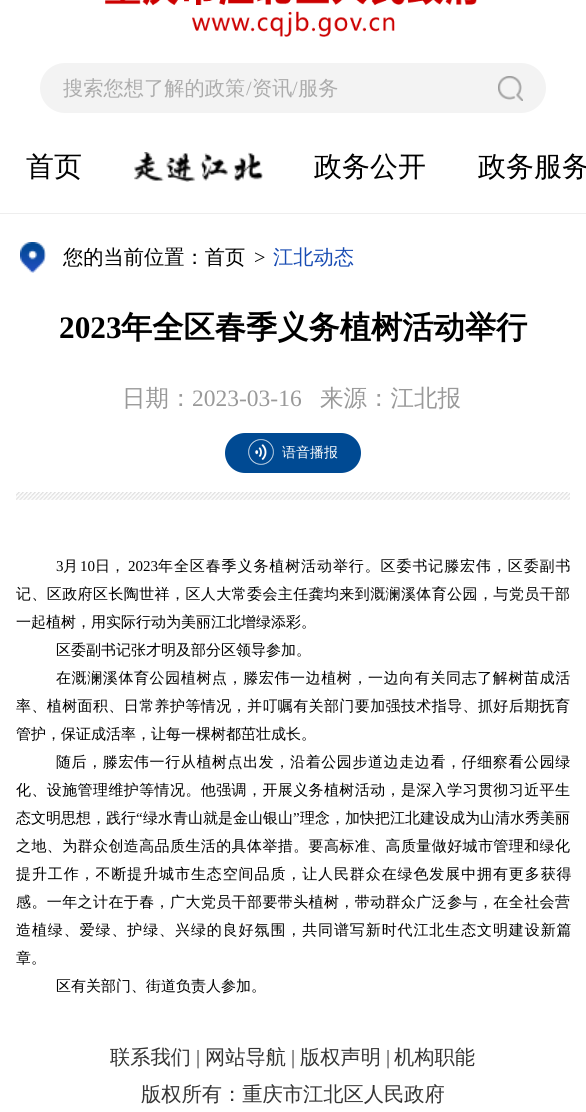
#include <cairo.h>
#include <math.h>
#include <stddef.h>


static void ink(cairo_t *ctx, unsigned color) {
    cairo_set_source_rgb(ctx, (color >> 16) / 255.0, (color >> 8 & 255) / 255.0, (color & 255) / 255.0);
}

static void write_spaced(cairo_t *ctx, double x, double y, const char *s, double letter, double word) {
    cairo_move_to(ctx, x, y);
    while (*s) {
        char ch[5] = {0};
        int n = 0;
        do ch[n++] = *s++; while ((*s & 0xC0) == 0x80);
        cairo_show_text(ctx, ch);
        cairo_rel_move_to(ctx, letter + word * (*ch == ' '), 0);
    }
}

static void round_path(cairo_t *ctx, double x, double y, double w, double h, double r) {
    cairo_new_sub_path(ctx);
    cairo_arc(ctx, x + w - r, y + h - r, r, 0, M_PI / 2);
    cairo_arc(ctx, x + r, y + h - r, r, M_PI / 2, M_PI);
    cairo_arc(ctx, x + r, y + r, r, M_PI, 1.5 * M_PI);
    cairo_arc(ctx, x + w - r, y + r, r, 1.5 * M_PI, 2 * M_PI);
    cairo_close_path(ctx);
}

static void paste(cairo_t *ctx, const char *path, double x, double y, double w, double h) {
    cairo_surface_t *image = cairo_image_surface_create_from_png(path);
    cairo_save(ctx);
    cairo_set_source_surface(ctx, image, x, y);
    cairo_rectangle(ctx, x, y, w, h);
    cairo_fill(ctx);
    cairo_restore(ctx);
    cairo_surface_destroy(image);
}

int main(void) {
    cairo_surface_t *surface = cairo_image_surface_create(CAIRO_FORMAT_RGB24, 586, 1112);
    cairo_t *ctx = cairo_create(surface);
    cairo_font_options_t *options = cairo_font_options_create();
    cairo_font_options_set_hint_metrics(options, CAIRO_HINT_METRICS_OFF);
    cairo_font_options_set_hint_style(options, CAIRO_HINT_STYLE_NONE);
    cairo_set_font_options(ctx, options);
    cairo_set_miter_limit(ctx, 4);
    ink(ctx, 0xFFFFFF);
    cairo_paint(ctx);
    ink(ctx, 0xEEEEEE);
    cairo_rectangle(ctx, 0, 213, 586, 1);
    cairo_fill(ctx);
    paste(ctx, "media/1.png", 105, 0, 372, 37);
    ink(ctx, 0xF3F3F3);
    round_path(ctx, 40, 63, 506, 50, 25);
    cairo_fill(ctx);
    cairo_select_font_face(ctx, "WenQuanYi Zen Hei Medium", CAIRO_FONT_SLANT_NORMAL, CAIRO_FONT_WEIGHT_NORMAL);
    cairo_set_font_size(ctx, 20.25);
    ink(ctx, 0xACACAC);
    cairo_move_to(ctx, 63, 95);
    cairo_show_text(ctx, "搜索您想了解的政策");
    cairo_select_font_face(ctx, "Liberation Serif", CAIRO_FONT_SLANT_NORMAL, CAIRO_FONT_WEIGHT_NORMAL);
    cairo_move_to(ctx, 246, 95);
    cairo_show_text(ctx, "/");
    cairo_select_font_face(ctx, "WenQuanYi Zen Hei Medium", CAIRO_FONT_SLANT_NORMAL, CAIRO_FONT_WEIGHT_NORMAL);
    cairo_move_to(ctx, 252, 95);
    cairo_show_text(ctx, "资讯");
    cairo_select_font_face(ctx, "Liberation Serif", CAIRO_FONT_SLANT_NORMAL, CAIRO_FONT_WEIGHT_NORMAL);
    cairo_move_to(ctx, 292, 95);
    cairo_show_text(ctx, "/");
    cairo_select_font_face(ctx, "WenQuanYi Zen Hei Medium", CAIRO_FONT_SLANT_NORMAL, CAIRO_FONT_WEIGHT_NORMAL);
    cairo_move_to(ctx, 298, 95);
    cairo_show_text(ctx, "服务");
    paste(ctx, "media/2.png", 498, 76, 25, 25);
    cairo_set_font_size(ctx, 28);
    ink(ctx, 0x000000);
    cairo_move_to(ctx, 26, 176);
    cairo_show_text(ctx, "首页");
    paste(ctx, "media/3.png", 134, 152, 129, 30);
    cairo_move_to(ctx, 314, 176);
    cairo_show_text(ctx, "政务公开");
    cairo_move_to(ctx, 478, 176);
    cairo_show_text(ctx, "政务服务");
    paste(ctx, "media/4.png", 20, 242, 26, 31);
    cairo_set_font_size(ctx, 20.25);
    cairo_move_to(ctx, 63, 264);
    cairo_show_text(ctx, "您的当前位置：首页");
    cairo_select_font_face(ctx, "Liberation Serif", CAIRO_FONT_SLANT_NORMAL, CAIRO_FONT_WEIGHT_NORMAL);
    cairo_move_to(ctx, 254, 264);
    cairo_show_text(ctx, ">");
    cairo_select_font_face(ctx, "WenQuanYi Zen Hei Medium", CAIRO_FONT_SLANT_NORMAL, CAIRO_FONT_WEIGHT_NORMAL);
    ink(ctx, 0x184CB3);
    cairo_move_to(ctx, 273, 264);
    cairo_show_text(ctx, "江北动态");
    cairo_select_font_face(ctx, "Liberation Serif", CAIRO_FONT_SLANT_NORMAL, CAIRO_FONT_WEIGHT_BOLD);
    cairo_set_font_size(ctx, 31.25);
    ink(ctx, 0x000000);
    cairo_move_to(ctx, 59, 338);
    cairo_show_text(ctx, "2023");
    cairo_select_font_face(ctx, "WenQuanYi Zen Hei", CAIRO_FONT_SLANT_NORMAL, CAIRO_FONT_WEIGHT_BOLD);
    cairo_move_to(ctx, 121, 338);
    cairo_show_text(ctx, "年全区春季义务植树活动举行");
    paste(ctx, "media/5.png", 16, 492, 554, 8);
    cairo_select_font_face(ctx, "WenQuanYi Zen Hei Medium", CAIRO_FONT_SLANT_NORMAL, CAIRO_FONT_WEIGHT_NORMAL);
    cairo_set_font_size(ctx, 23.5);
    ink(ctx, 0x999999);
    cairo_move_to(ctx, 122, 406);
    cairo_show_text(ctx, "日期：");
    cairo_select_font_face(ctx, "Liberation Serif", CAIRO_FONT_SLANT_NORMAL, CAIRO_FONT_WEIGHT_NORMAL);
    cairo_move_to(ctx, 192, 406);
    cairo_show_text(ctx, "2023-03-16");
    cairo_select_font_face(ctx, "WenQuanYi Zen Hei Medium", CAIRO_FONT_SLANT_NORMAL, CAIRO_FONT_WEIGHT_NORMAL);
    cairo_move_to(ctx, 320, 406);
    cairo_show_text(ctx, "来源：江北报");
    ink(ctx, 0x004A93);
    round_path(ctx, 225, 433, 136, 40, 20);
    cairo_fill(ctx);
    paste(ctx, "media/6.png", 248, 439, 26, 26);
    cairo_set_font_size(ctx, 14);
    ink(ctx, 0xFFFFFF);
    cairo_move_to(ctx, 282, 457);
    cairo_show_text(ctx, "语音播报");
    cairo_select_font_face(ctx, "Liberation Serif", CAIRO_FONT_SLANT_NORMAL, CAIRO_FONT_WEIGHT_NORMAL);
    cairo_set_font_size(ctx, 15);
    ink(ctx, 0x000000);
    cairo_move_to(ctx, 56, 571);
    cairo_show_text(ctx, "3");
    cairo_select_font_face(ctx, "WenQuanYi Zen Hei Medium", CAIRO_FONT_SLANT_NORMAL, CAIRO_FONT_WEIGHT_NORMAL);
    cairo_move_to(ctx, 63, 571);
    cairo_show_text(ctx, "月");
    cairo_select_font_face(ctx, "Liberation Serif", CAIRO_FONT_SLANT_NORMAL, CAIRO_FONT_WEIGHT_NORMAL);
    cairo_move_to(ctx, 80, 571);
    cairo_show_text(ctx, "10");
    cairo_select_font_face(ctx, "WenQuanYi Zen Hei Medium", CAIRO_FONT_SLANT_NORMAL, CAIRO_FONT_WEIGHT_NORMAL);
    cairo_move_to(ctx, 95, 571);
    cairo_show_text(ctx, "日，");
    cairo_select_font_face(ctx, "Liberation Serif", CAIRO_FONT_SLANT_NORMAL, CAIRO_FONT_WEIGHT_NORMAL);
    cairo_move_to(ctx, 128, 571);
    cairo_show_text(ctx, "2023");
    cairo_select_font_face(ctx, "WenQuanYi Zen Hei Medium", CAIRO_FONT_SLANT_NORMAL, CAIRO_FONT_WEIGHT_NORMAL);
    write_spaced(ctx, 158, 571, "年全区春季义务植树活动举行。区委书记滕宏伟，区委副书", 0.9, 0);
    write_spaced(ctx, 16, 599, "记、区政府区长陶世祥，区人大常委会主任龚均来到溉澜溪体育公园，与党员干部", 0.4, 0);
    cairo_move_to(ctx, 16, 627);
    cairo_show_text(ctx, "一起植树，用实际行动为美丽江北增绿添彩。");
    cairo_move_to(ctx, 56, 655);
    cairo_show_text(ctx, "区委副书记张才明及部分区领导参加。");
    write_spaced(ctx, 56, 683, "在溉澜溪体育公园植树点，滕宏伟一边植树，一边向有关同志了解树苗成活", 0.6, 0);
    write_spaced(ctx, 16, 711, "率、植树面积、日常养护等情况，并叮嘱有关部门要加强技术指导、抓好后期抚育", 0.4, 0);
    cairo_move_to(ctx, 16, 739);
    cairo_show_text(ctx, "管护，保证成活率，让每一棵树都茁壮成长。");
    write_spaced(ctx, 56, 767, "随后，滕宏伟一行从植树点出发，沿着公园步道边走边看，仔细察看公园绿", 0.6, 0);
    write_spaced(ctx, 16, 795, "化、设施管理维护等情况。他强调，开展义务植树活动，是深入学习贯彻习近平生", 0.4, 0);
    cairo_move_to(ctx, 16, 823);
    cairo_show_text(ctx, "态文明思想，践行");
    cairo_select_font_face(ctx, "Liberation Serif", CAIRO_FONT_SLANT_NORMAL, CAIRO_FONT_WEIGHT_NORMAL);
    cairo_move_to(ctx, 136, 823);
    cairo_show_text(ctx, "“");
    cairo_select_font_face(ctx, "WenQuanYi Zen Hei Medium", CAIRO_FONT_SLANT_NORMAL, CAIRO_FONT_WEIGHT_NORMAL);
    cairo_move_to(ctx, 143, 823);
    cairo_show_text(ctx, "绿水青山就是金山银山");
    cairo_select_font_face(ctx, "Liberation Serif", CAIRO_FONT_SLANT_NORMAL, CAIRO_FONT_WEIGHT_NORMAL);
    cairo_move_to(ctx, 293, 823);
    cairo_show_text(ctx, "”");
    cairo_select_font_face(ctx, "WenQuanYi Zen Hei Medium", CAIRO_FONT_SLANT_NORMAL, CAIRO_FONT_WEIGHT_NORMAL);
    cairo_move_to(ctx, 300, 823);
    cairo_show_text(ctx, "理念，加快把江北建设成为山清水秀美丽");
    write_spaced(ctx, 16, 851, "之地、为群众创造高品质生活的具体举措。要高标准、高质量做好城市管理和绿化", 0.4, 0);
    write_spaced(ctx, 16, 879, "提升工作，不断提升城市生态空间品质，让人民群众在绿色发展中拥有更多获得", 0.9, 0);
    write_spaced(ctx, 16, 907, "感。一年之计在于春，广大党员干部要带头植树，带动群众广泛参与，在全社会营", 0.4, 0);
    write_spaced(ctx, 16, 935, "造植绿、爱绿、护绿、兴绿的良好氛围，共同谱写新时代江北生态文明建设新篇", 0.9, 0);
    cairo_move_to(ctx, 16, 963);
    cairo_show_text(ctx, "章。");
    cairo_move_to(ctx, 56, 991);
    cairo_show_text(ctx, "区有关部门、街道负责人参加。");
    cairo_set_font_size(ctx, 20.25);
    ink(ctx, 0x333333);
    cairo_move_to(ctx, 110, 1064);
    cairo_show_text(ctx, "联系我们");
    cairo_select_font_face(ctx, "Liberation Serif", CAIRO_FONT_SLANT_NORMAL, CAIRO_FONT_WEIGHT_NORMAL);
    cairo_move_to(ctx, 196, 1064);
    cairo_show_text(ctx, "|");
    cairo_select_font_face(ctx, "WenQuanYi Zen Hei Medium", CAIRO_FONT_SLANT_NORMAL, CAIRO_FONT_WEIGHT_NORMAL);
    cairo_move_to(ctx, 205, 1064);
    cairo_show_text(ctx, "网站导航");
    cairo_select_font_face(ctx, "Liberation Serif", CAIRO_FONT_SLANT_NORMAL, CAIRO_FONT_WEIGHT_NORMAL);
    cairo_move_to(ctx, 291, 1064);
    cairo_show_text(ctx, "|");
    cairo_select_font_face(ctx, "WenQuanYi Zen Hei Medium", CAIRO_FONT_SLANT_NORMAL, CAIRO_FONT_WEIGHT_NORMAL);
    cairo_move_to(ctx, 300, 1064);
    cairo_show_text(ctx, "版权声明");
    cairo_select_font_face(ctx, "Liberation Serif", CAIRO_FONT_SLANT_NORMAL, CAIRO_FONT_WEIGHT_NORMAL);
    cairo_move_to(ctx, 386, 1064);
    cairo_show_text(ctx, "|");
    cairo_select_font_face(ctx, "WenQuanYi Zen Hei Medium", CAIRO_FONT_SLANT_NORMAL, CAIRO_FONT_WEIGHT_NORMAL);
    cairo_move_to(ctx, 394, 1064);
    cairo_show_text(ctx, "机构职能");
    cairo_move_to(ctx, 141, 1101);
    cairo_show_text(ctx, "版权所有：重庆市江北区人民政府");
    cairo_surface_write_to_png(surface, "image.png");
    cairo_font_options_destroy(options);
    cairo_destroy(ctx);
    cairo_surface_destroy(surface);
    return 0;
}
